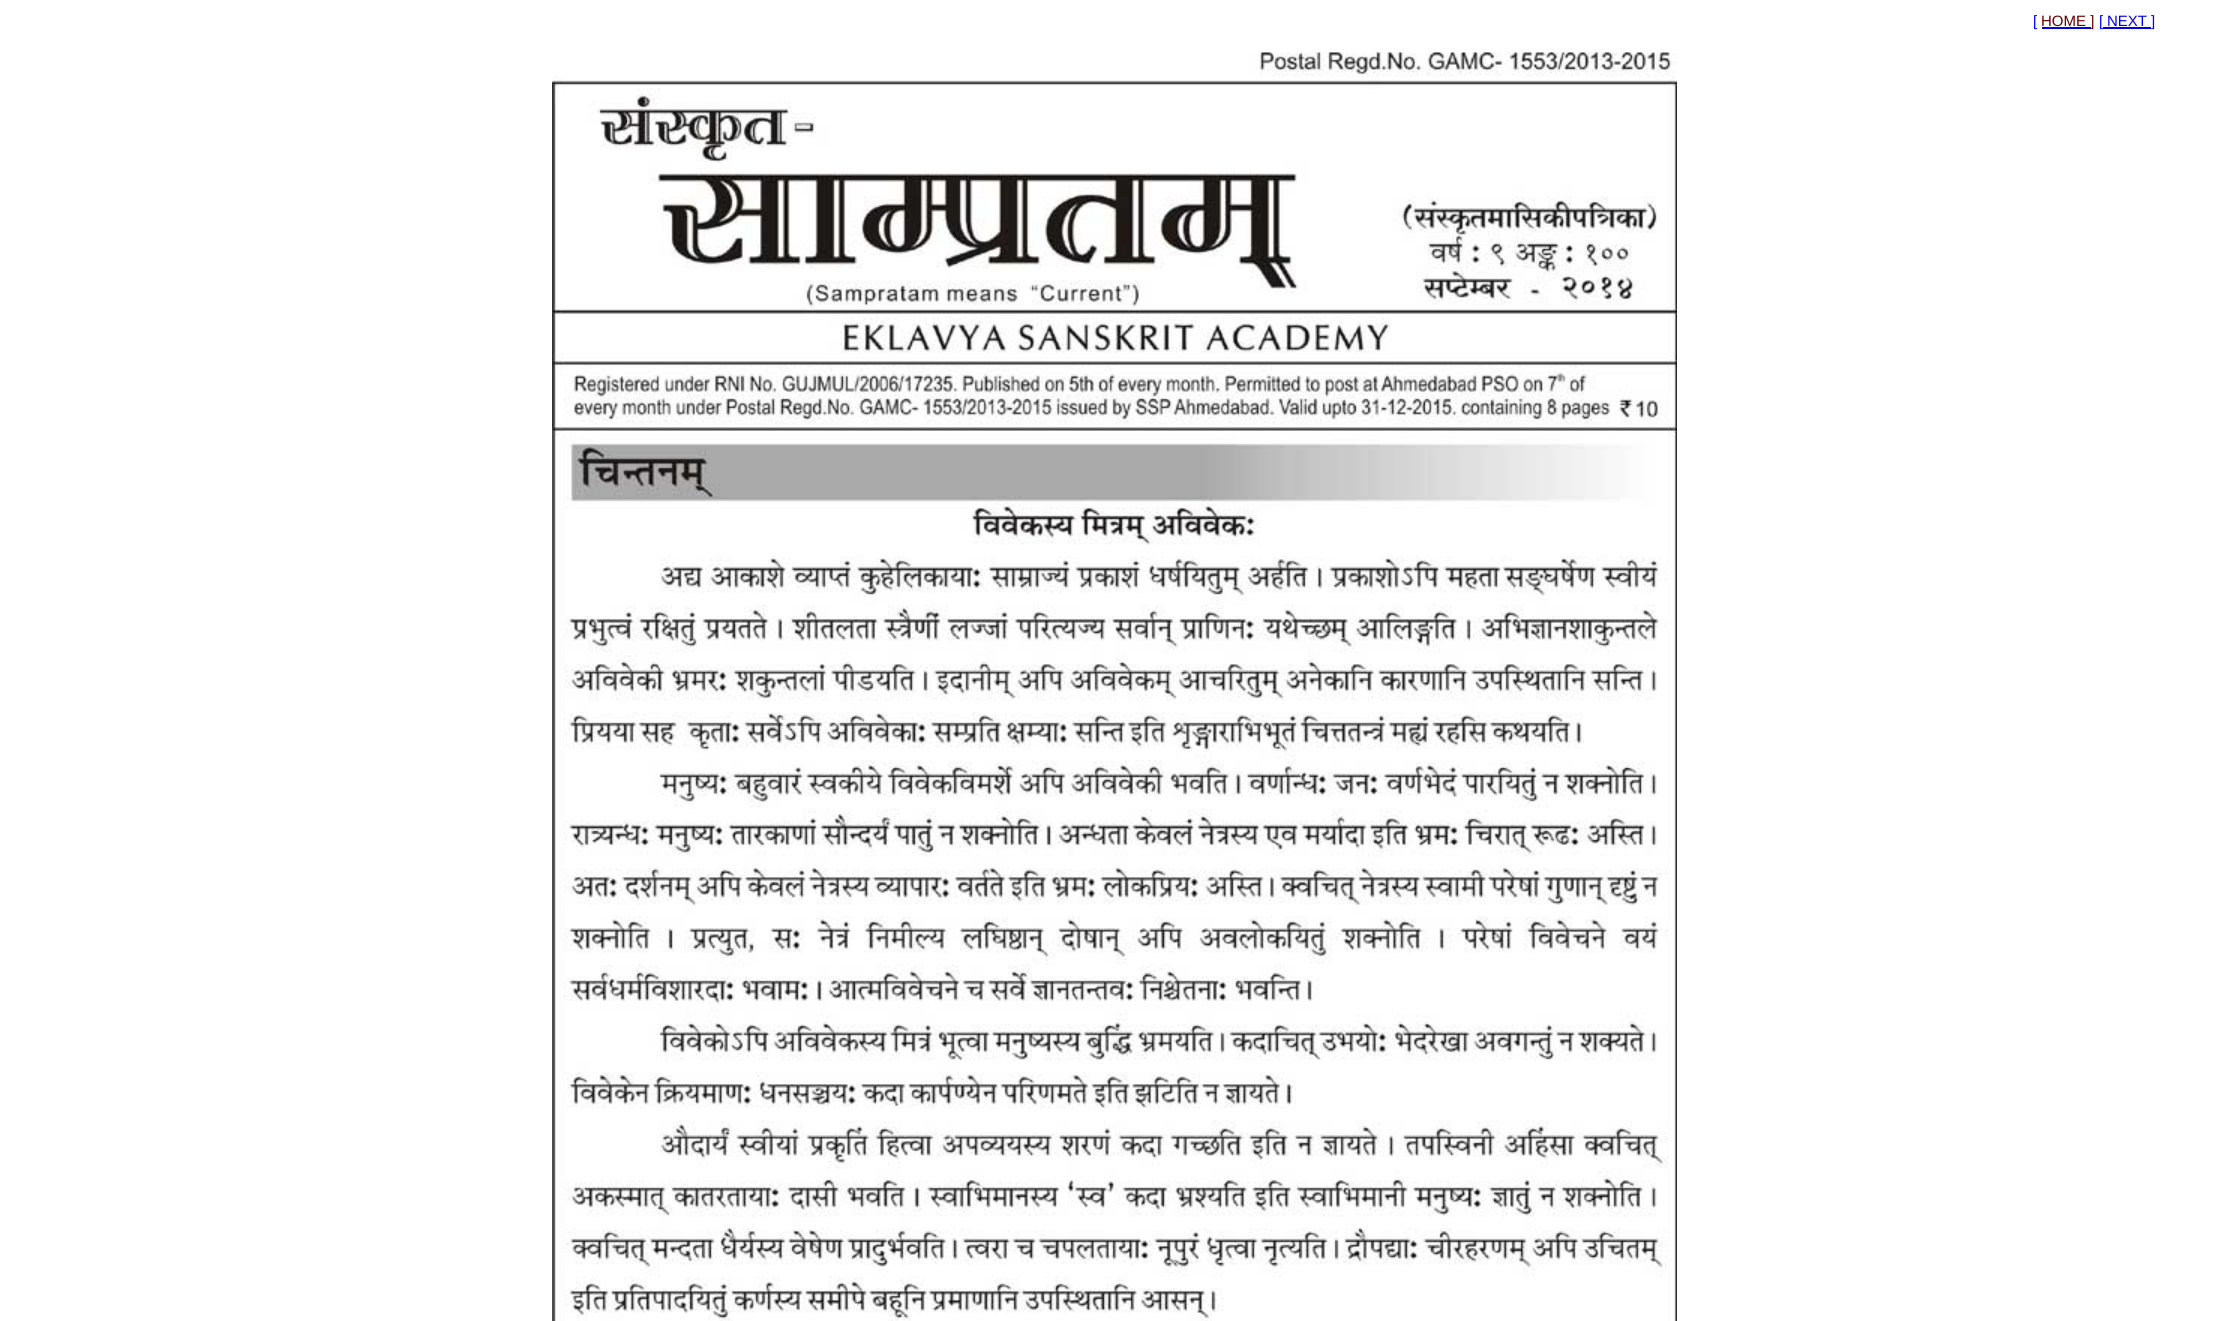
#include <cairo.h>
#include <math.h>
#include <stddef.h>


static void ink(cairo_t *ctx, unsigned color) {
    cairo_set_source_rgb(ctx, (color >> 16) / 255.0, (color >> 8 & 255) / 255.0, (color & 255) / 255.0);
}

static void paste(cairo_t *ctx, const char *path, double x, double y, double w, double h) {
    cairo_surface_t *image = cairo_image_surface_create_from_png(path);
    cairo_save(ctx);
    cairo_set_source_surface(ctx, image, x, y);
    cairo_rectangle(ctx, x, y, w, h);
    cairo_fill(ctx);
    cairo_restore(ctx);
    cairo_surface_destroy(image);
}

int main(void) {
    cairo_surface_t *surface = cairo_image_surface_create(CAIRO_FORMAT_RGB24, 2228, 1321);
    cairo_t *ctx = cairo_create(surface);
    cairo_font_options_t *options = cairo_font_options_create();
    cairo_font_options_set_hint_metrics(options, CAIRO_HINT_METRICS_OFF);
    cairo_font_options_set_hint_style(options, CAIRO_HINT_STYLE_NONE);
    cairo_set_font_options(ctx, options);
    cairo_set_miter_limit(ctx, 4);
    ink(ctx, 0xFFFFFF);
    cairo_paint(ctx);
    cairo_select_font_face(ctx, "Liberation Sans", CAIRO_FONT_SLANT_NORMAL, CAIRO_FONT_WEIGHT_NORMAL);
    cairo_set_font_size(ctx, 15);
    ink(ctx, 0x0000FF);
    cairo_move_to(ctx, 2033, 26);
    cairo_show_text(ctx, "[");
    ink(ctx, 0x0000EE);
    cairo_rectangle(ctx, 2042, 27, 49, 2);
    cairo_fill(ctx);
    ink(ctx, 0x660000);
    cairo_move_to(ctx, 2041, 26);
    cairo_show_text(ctx, "HOME ]");
    ink(ctx, 0x0000FF);
    cairo_move_to(ctx, 2099, 26);
    cairo_show_text(ctx, "[");
    ink(ctx, 0x0000EE);
    cairo_rectangle(ctx, 2103, 27, 48, 2);
    cairo_fill(ctx);
    cairo_move_to(ctx, 2107, 26);
    cairo_show_text(ctx, "NEXT");
    ink(ctx, 0x0000FF);
    cairo_move_to(ctx, 2151, 26);
    cairo_show_text(ctx, "]");
    paste(ctx, "media/1.png", 552, 52, 1125, 1269);
    cairo_surface_write_to_png(surface, "image.png");
    cairo_font_options_destroy(options);
    cairo_destroy(ctx);
    cairo_surface_destroy(surface);
    return 0;
}
